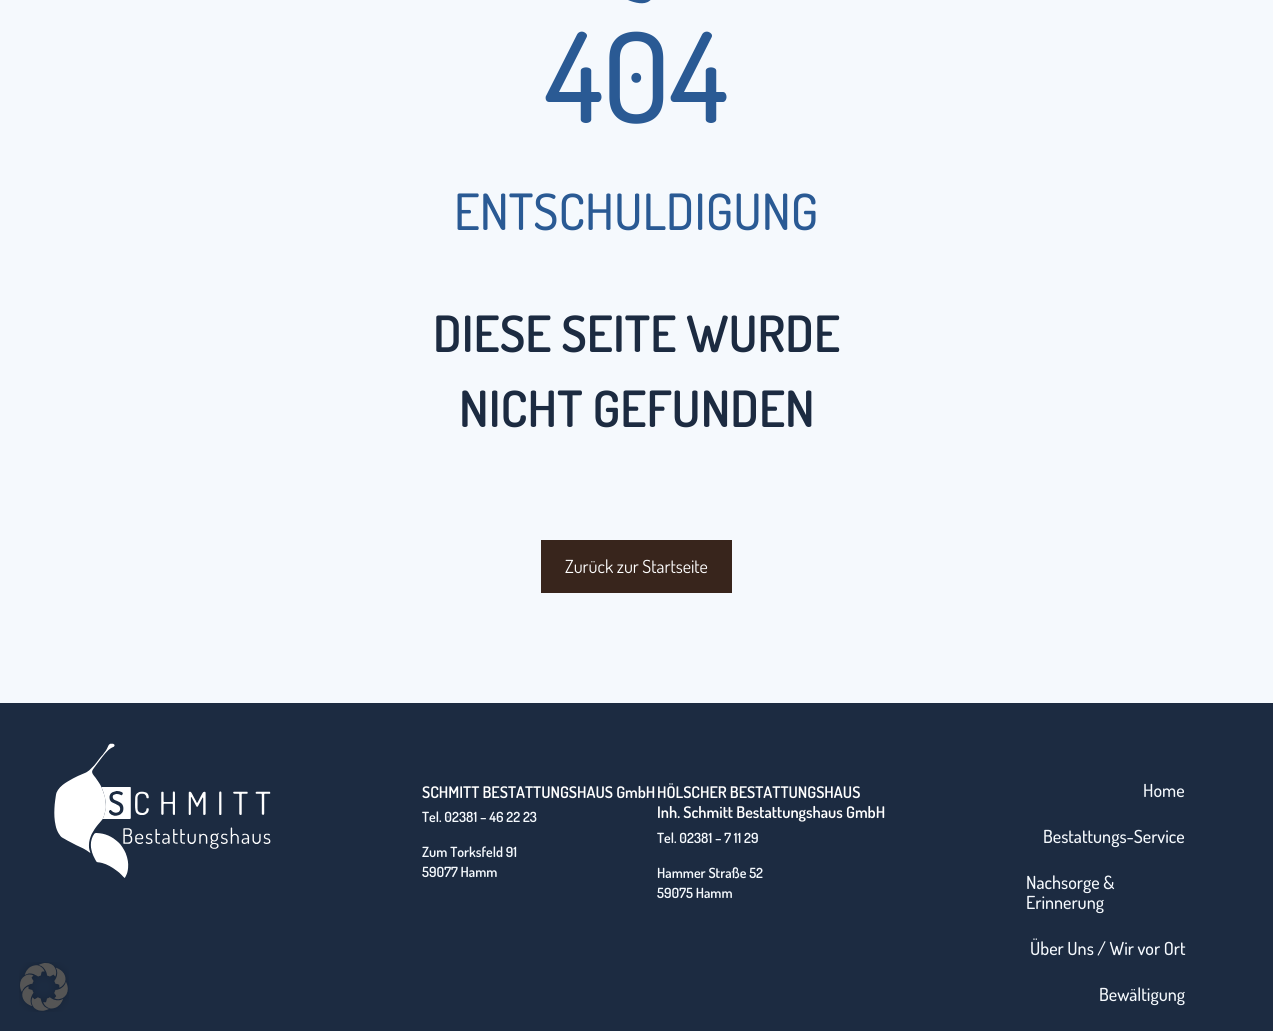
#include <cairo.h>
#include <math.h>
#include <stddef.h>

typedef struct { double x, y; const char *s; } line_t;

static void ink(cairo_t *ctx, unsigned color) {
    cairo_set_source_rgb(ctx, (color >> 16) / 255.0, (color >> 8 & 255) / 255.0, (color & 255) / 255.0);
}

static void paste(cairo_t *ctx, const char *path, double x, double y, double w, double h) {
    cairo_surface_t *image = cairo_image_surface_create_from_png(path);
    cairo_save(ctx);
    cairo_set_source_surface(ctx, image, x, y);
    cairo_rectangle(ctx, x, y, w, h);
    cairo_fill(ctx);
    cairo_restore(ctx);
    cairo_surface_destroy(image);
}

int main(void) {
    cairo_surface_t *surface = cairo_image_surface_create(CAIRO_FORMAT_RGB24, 1273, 1031);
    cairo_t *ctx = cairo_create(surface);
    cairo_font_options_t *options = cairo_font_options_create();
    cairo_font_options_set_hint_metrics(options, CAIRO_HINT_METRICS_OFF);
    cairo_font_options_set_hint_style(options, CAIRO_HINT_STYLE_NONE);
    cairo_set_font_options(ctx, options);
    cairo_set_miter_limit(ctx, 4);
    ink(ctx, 0xF5F9FD);
    cairo_paint(ctx);
    paste(ctx, "media/1.png", 628, 0, 23, 4);
    cairo_select_font_face(ctx, "Dosis Medium", CAIRO_FONT_SLANT_NORMAL, CAIRO_FONT_WEIGHT_NORMAL);
    cairo_set_font_size(ctx, 125);
    ink(ctx, 0x2A5A94);
    cairo_move_to(ctx, 545, 123);
    cairo_show_text(ctx, "404");
    cairo_set_font_size(ctx, 50);
    cairo_move_to(ctx, 454, 230);
    cairo_show_text(ctx, "ENTSCHULDIGUNG");
    cairo_select_font_face(ctx, "Dosis SemiBold", CAIRO_FONT_SLANT_NORMAL, CAIRO_FONT_WEIGHT_NORMAL);
    ink(ctx, 0x1C2B41);
    cairo_move_to(ctx, 433, 352);
    cairo_show_text(ctx, "DIESE SEITE WURDE");
    cairo_move_to(ctx, 459, 427);
    cairo_show_text(ctx, "NICHT GEFUNDEN");
    ink(ctx, 0x38251C);
    cairo_rectangle(ctx, 541, 540, 191, 53);
    cairo_fill(ctx);
    cairo_select_font_face(ctx, "Dosis", CAIRO_FONT_SLANT_NORMAL, CAIRO_FONT_WEIGHT_NORMAL);
    cairo_set_font_size(ctx, 18);
    ink(ctx, 0xFFFFFF);
    cairo_move_to(ctx, 565, 573);
    cairo_show_text(ctx, "Zurück zur Startseite");
    ink(ctx, 0x1C2B41);
    cairo_rectangle(ctx, 0, 703, 1273, 328);
    cairo_fill(ctx);
    paste(ctx, "media/2.png", 19, 962, 50, 50);
    paste(ctx, "media/3.png", 54, 743, 217, 135);
    cairo_select_font_face(ctx, "Dosis SemiBold", CAIRO_FONT_SLANT_NORMAL, CAIRO_FONT_WEIGHT_NORMAL);
    cairo_set_font_size(ctx, 16);
    ink(ctx, 0xFFFFFF);
    cairo_move_to(ctx, 422, 798);
    cairo_show_text(ctx, "SCHMITT BESTATTUNGSHAUS GmbH");
    cairo_set_font_size(ctx, 14);
    ink(ctx, 0xF5F9FD);
    {
        static const line_t items[] = {
            {422, 822, "Tel. 02381 – 46 22 23"},
            {422, 857, "Zum Torksfeld 91"},
            {422, 877, "59077 Hamm"},
        };
        for (size_t i = 0; i < sizeof items / sizeof *items; i++) {
            cairo_move_to(ctx, items[i].x, items[i].y);
            cairo_show_text(ctx, items[i].s);
        }
    }
    cairo_set_font_size(ctx, 16);
    ink(ctx, 0xFFFFFF);
    cairo_move_to(ctx, 657, 798);
    cairo_show_text(ctx, "HÖLSCHER BESTATTUNGSHAUS");
    cairo_move_to(ctx, 657, 818);
    cairo_show_text(ctx, "Inh. Schmitt Bestattungshaus GmbH");
    cairo_set_font_size(ctx, 14);
    ink(ctx, 0xF5F9FD);
    {
        static const line_t items[] = {
            {657, 843, "Tel. 02381 – 7 11 29"},
            {657, 878, "Hammer Straße 52"},
            {657, 898, "59075 Hamm"},
        };
        for (size_t i = 0; i < sizeof items / sizeof *items; i++) {
            cairo_move_to(ctx, items[i].x, items[i].y);
            cairo_show_text(ctx, items[i].s);
        }
    }
    cairo_select_font_face(ctx, "Dosis Medium", CAIRO_FONT_SLANT_NORMAL, CAIRO_FONT_WEIGHT_NORMAL);
    cairo_set_font_size(ctx, 18);
    {
        static const line_t items[] = {
            {1143, 797, "Home"},
            {1043, 843, "Bestattungs-Service"},
            {1026, 889, "Nachsorge &"},
            {1026, 909, "Erinnerung"},
            {1030, 955, "Über Uns / Wir vor Ort"},
            {1099, 1001, "Bewältigung"},
        };
        for (size_t i = 0; i < sizeof items / sizeof *items; i++) {
            cairo_move_to(ctx, items[i].x, items[i].y);
            cairo_show_text(ctx, items[i].s);
        }
    }
    cairo_surface_write_to_png(surface, "image.png");
    cairo_font_options_destroy(options);
    cairo_destroy(ctx);
    cairo_surface_destroy(surface);
    return 0;
}
